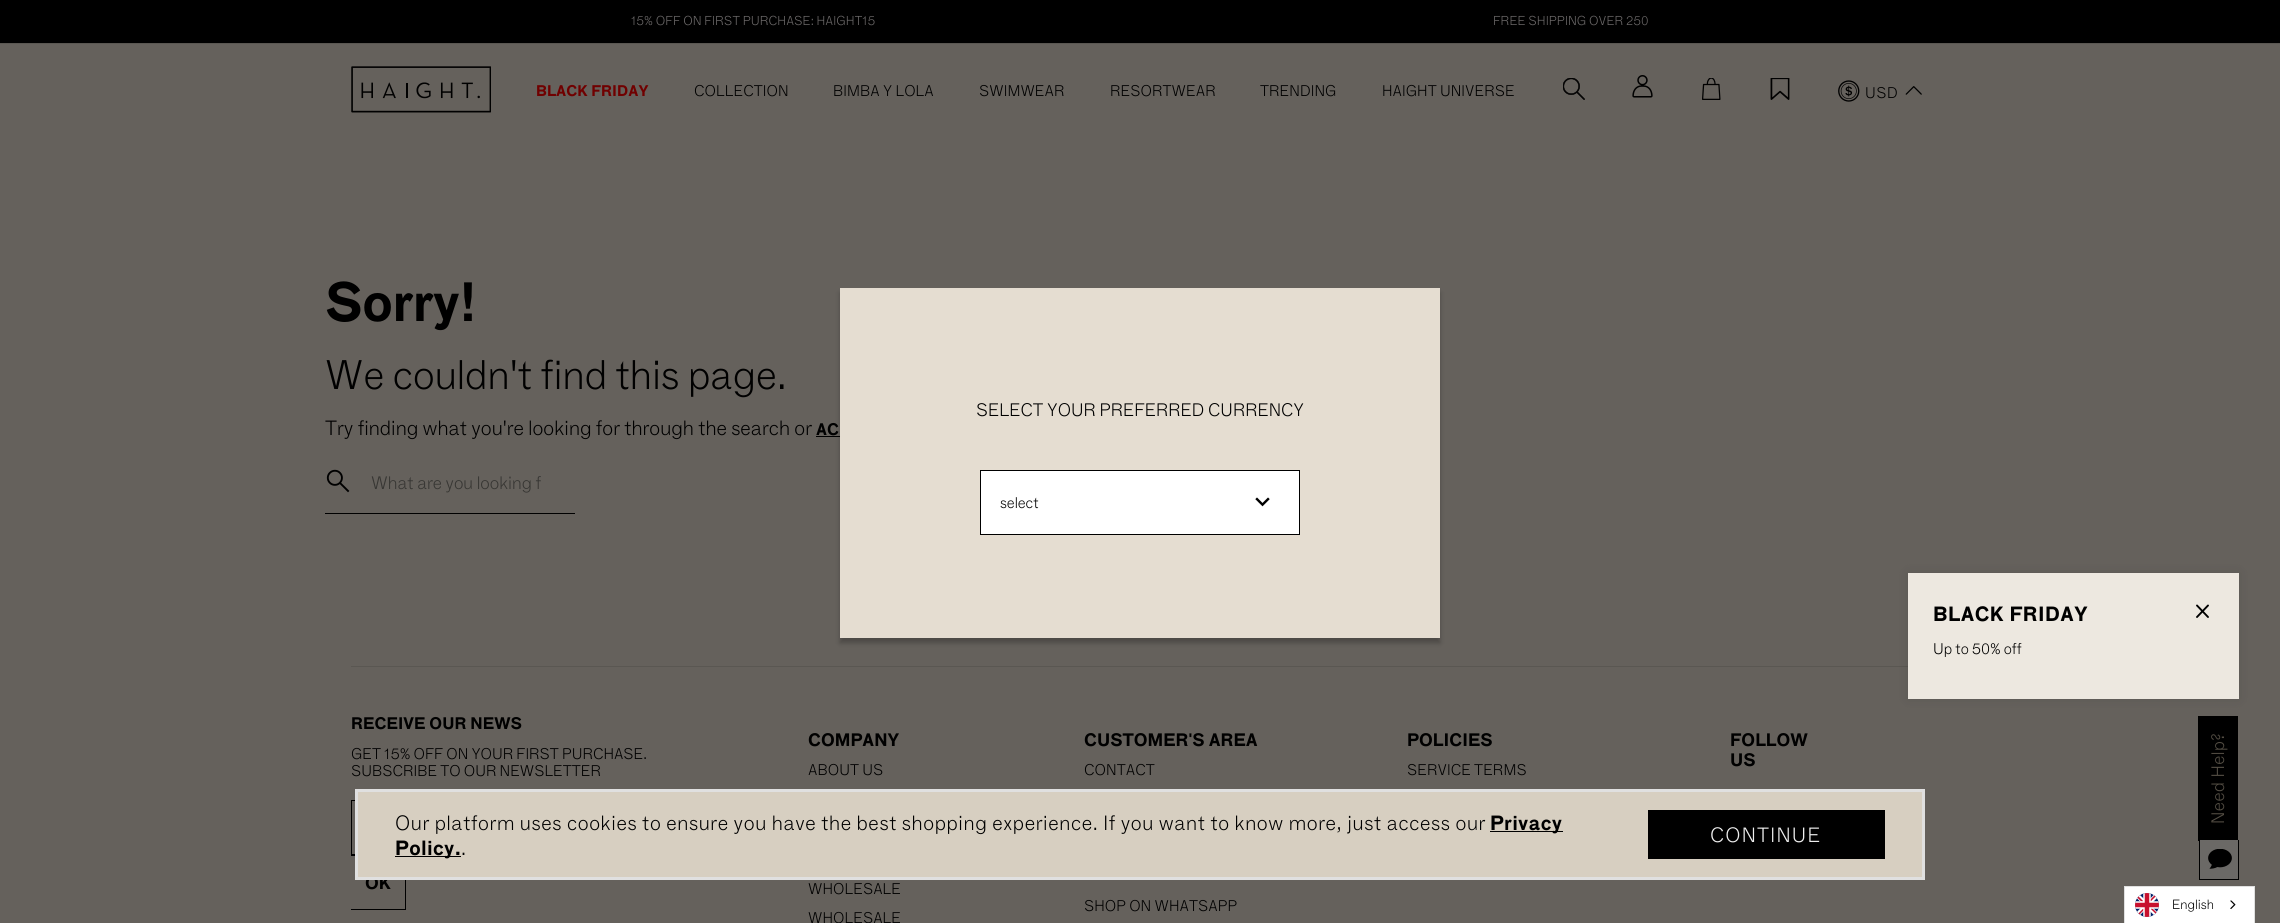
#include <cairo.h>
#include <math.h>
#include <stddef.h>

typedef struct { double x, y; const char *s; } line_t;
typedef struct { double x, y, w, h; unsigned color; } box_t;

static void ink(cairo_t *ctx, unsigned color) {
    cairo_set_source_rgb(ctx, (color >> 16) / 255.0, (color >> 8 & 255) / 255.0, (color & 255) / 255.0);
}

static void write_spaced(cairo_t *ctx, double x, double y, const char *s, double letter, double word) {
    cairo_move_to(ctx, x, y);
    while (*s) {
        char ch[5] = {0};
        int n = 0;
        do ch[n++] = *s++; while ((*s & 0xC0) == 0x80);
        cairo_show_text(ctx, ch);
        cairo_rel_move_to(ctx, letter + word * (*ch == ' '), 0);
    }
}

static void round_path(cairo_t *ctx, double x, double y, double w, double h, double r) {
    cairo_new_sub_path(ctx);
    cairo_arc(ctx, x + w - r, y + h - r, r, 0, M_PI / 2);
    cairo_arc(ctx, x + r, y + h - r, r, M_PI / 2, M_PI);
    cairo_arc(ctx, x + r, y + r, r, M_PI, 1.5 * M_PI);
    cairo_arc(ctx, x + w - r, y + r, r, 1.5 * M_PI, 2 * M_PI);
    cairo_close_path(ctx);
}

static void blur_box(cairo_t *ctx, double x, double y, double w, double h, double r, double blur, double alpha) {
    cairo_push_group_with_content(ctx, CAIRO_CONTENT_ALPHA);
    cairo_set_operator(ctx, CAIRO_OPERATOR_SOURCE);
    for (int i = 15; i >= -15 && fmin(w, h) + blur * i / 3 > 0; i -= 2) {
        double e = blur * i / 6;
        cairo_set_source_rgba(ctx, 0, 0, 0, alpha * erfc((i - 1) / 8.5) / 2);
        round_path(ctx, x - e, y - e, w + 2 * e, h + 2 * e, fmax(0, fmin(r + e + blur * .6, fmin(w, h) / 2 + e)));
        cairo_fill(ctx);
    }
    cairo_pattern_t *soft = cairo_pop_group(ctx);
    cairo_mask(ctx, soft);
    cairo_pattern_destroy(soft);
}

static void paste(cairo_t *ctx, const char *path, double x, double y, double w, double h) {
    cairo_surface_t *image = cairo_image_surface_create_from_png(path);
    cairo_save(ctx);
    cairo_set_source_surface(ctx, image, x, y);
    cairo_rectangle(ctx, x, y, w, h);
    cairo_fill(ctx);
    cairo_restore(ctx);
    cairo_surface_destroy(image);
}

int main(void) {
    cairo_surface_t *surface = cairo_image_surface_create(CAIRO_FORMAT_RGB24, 2280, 923);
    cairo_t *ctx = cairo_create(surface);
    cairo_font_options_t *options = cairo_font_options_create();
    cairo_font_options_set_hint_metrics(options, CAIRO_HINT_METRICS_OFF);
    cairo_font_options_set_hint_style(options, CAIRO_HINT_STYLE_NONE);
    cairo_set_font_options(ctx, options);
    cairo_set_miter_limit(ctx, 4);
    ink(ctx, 0x65615C);
    cairo_paint(ctx);
    ink(ctx, 0x000000);
    cairo_rectangle(ctx, 0, 0, 2280, 43);
    cairo_fill(ctx);
    ink(ctx, 0x5A5752);
    cairo_rectangle(ctx, 0, 43, 2280, 1);
    cairo_fill(ctx);
    cairo_select_font_face(ctx, "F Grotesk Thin", CAIRO_FONT_SLANT_NORMAL, CAIRO_FONT_WEIGHT_NORMAL);
    cairo_set_font_size(ctx, 12.5);
    ink(ctx, 0x6C6969);
    write_spaced(ctx, 631, 25, "15% OFF ON FIRST PURCHASE: HAIGHT15", 0.05, 0);
    write_spaced(ctx, 1493, 25, "FREE SHIPPING OVER 250", 0.05, 0);
    paste(ctx, "media/1.png", 351, 66, 140, 47);
    cairo_select_font_face(ctx, "F Grotesk", CAIRO_FONT_SLANT_NORMAL, CAIRO_FONT_WEIGHT_BOLD);
    cairo_set_font_size(ctx, 15);
    ink(ctx, 0x700000);
    write_spaced(ctx, 536, 96, "BLACK FRIDAY", 0.05, 0);
    cairo_select_font_face(ctx, "F Grotesk Thin", CAIRO_FONT_SLANT_NORMAL, CAIRO_FONT_WEIGHT_NORMAL);
    ink(ctx, 0x000000);
    {
        static const line_t items[] = {
            {694, 96, "COLLECTION"},
            {833, 96, "BIMBA Y LOLA"},
            {979, 96, "SWIMWEAR"},
            {1110, 96, "RESORTWEAR"},
            {1260, 96, "TRENDING"},
            {1382, 96, "HAIGHT UNIVERSE"},
        };
        for (size_t i = 0; i < sizeof items / sizeof *items; i++) {
            write_spaced(ctx, items[i].x, items[i].y, items[i].s, 0.05, 0);
        }
    }
    paste(ctx, "media/2.png", 1563, 78, 22, 22);
    paste(ctx, "media/3.png", 1632, 75, 21, 23);
    paste(ctx, "media/4.png", 1702, 78, 19, 22);
    paste(ctx, "media/5.png", 1770, 78, 20, 22);
    paste(ctx, "media/6.png", 1838, 80, 22, 22);
    write_spaced(ctx, 1865, 98, "USD", 0.5, 0);
    paste(ctx, "media/7.png", 1905, 86, 17, 9);
    cairo_rectangle(ctx, 816, 436, 24, 1);
    cairo_fill(ctx);
    ink(ctx, 0x000000);
    blur_box(ctx, 840, 293, 600, 350, 0, 2.5, 0.25);
    ink(ctx, 0xE5DDD1);
    cairo_rectangle(ctx, 840, 288, 600, 350);
    cairo_fill(ctx);
    cairo_set_font_size(ctx, 17.5);
    ink(ctx, 0x000000);
    cairo_move_to(ctx, 976, 416);
    cairo_show_text(ctx, "SELECT YOUR PREFERRED CURRENCY");
    ink(ctx, 0xFFFFFF);
    cairo_rectangle(ctx, 981, 471, 318, 63);
    cairo_fill(ctx);
    paste(ctx, "media/8.png", 1255, 497, 15, 10);
    cairo_rectangle(ctx, 980.5, 470.5, 319, 64);
    ink(ctx, 0x000000);
    cairo_set_line_width(ctx, 1);
    cairo_stroke(ctx);
    cairo_set_font_size(ctx, 15);
    cairo_move_to(ctx, 1000, 508);
    cairo_show_text(ctx, "select");
    cairo_select_font_face(ctx, "F Grotesk", CAIRO_FONT_SLANT_NORMAL, CAIRO_FONT_WEIGHT_BOLD);
    cairo_set_font_size(ctx, 53.5);
    write_spaced(ctx, 325, 321, "Sorry!", 0.05, 0);
    cairo_select_font_face(ctx, "F Grotesk Thin", CAIRO_FONT_SLANT_NORMAL, CAIRO_FONT_WEIGHT_NORMAL);
    cairo_set_font_size(ctx, 40);
    write_spaced(ctx, 325, 389, "We couldn't find this page.", 0.05, 0);
    cairo_set_font_size(ctx, 20);
    write_spaced(ctx, 325, 435, "Try finding what you're looking for through the search or", 0.05, 0);
    cairo_select_font_face(ctx, "F Grotesk", CAIRO_FONT_SLANT_NORMAL, CAIRO_FONT_WEIGHT_BOLD);
    cairo_set_font_size(ctx, 16.25);
    write_spaced(ctx, 816, 435, "AC", 0.05, 0);
    cairo_rectangle(ctx, 325, 513, 250, 1);
    cairo_fill(ctx);
    paste(ctx, "media/9.png", 326, 469, 24, 24);
    cairo_select_font_face(ctx, "F Grotesk Thin", CAIRO_FONT_SLANT_NORMAL, CAIRO_FONT_WEIGHT_NORMAL);
    cairo_set_font_size(ctx, 17.5);
    ink(ctx, 0x373633);
    cairo_move_to(ctx, 371, 489);
    cairo_show_text(ctx, "What are you looking f");
    ink(ctx, 0x5A5752);
    cairo_rectangle(ctx, 351, 666, 1557, 1);
    cairo_fill(ctx);
    ink(ctx, 0x000000);
    cairo_rectangle(ctx, 2198, 716, 40, 125);
    cairo_fill(ctx);
    ink(ctx, 0x000000);
    blur_box(ctx, 1908, 573, 331, 126, 0, 6, 0.1);
    ink(ctx, 0xEDE8E0);
    cairo_rectangle(ctx, 1908, 573, 331, 126);
    cairo_fill(ctx);
    cairo_select_font_face(ctx, "F Grotesk", CAIRO_FONT_SLANT_NORMAL, CAIRO_FONT_WEIGHT_BOLD);
    cairo_set_font_size(ctx, 20);
    ink(ctx, 0x000000);
    write_spaced(ctx, 1933, 621, "BLACK FRIDAY", 0.5, 0);
    cairo_new_path(ctx);
    cairo_move_to(ctx, 2208, 605.5);
    cairo_line_to(ctx, 2197, 617);
    cairo_move_to(ctx, 2197, 605.5);
    cairo_line_to(ctx, 2208, 617);
    cairo_set_line_width(ctx, 1.9);
    cairo_set_line_cap(ctx, CAIRO_LINE_CAP_ROUND);
    cairo_set_line_join(ctx, CAIRO_LINE_JOIN_ROUND);
    cairo_stroke(ctx);
    cairo_select_font_face(ctx, "F Grotesk Thin", CAIRO_FONT_SLANT_NORMAL, CAIRO_FONT_WEIGHT_NORMAL);
    cairo_set_font_size(ctx, 15);
    cairo_move_to(ctx, 1933, 654);
    cairo_show_text(ctx, "Up to 50% off");
    cairo_select_font_face(ctx, "F Grotesk", CAIRO_FONT_SLANT_NORMAL, CAIRO_FONT_WEIGHT_BOLD);
    cairo_set_font_size(ctx, 16.25);
    write_spaced(ctx, 351, 729, "RECEIVE OUR NEWS", 0.05, 0);
    cairo_select_font_face(ctx, "F Grotesk Thin", CAIRO_FONT_SLANT_NORMAL, CAIRO_FONT_WEIGHT_NORMAL);
    cairo_set_font_size(ctx, 15);
    cairo_move_to(ctx, 351, 759);
    cairo_show_text(ctx, "GET 15% OFF ON YOUR FIRST PURCHASE.");
    cairo_move_to(ctx, 351, 776);
    cairo_show_text(ctx, "SUBSCRIBE TO OUR NEWSLETTER");
    cairo_rectangle(ctx, 351.5, 800.5, 276, 54);
    cairo_set_line_width(ctx, 1);
    cairo_set_line_cap(ctx, CAIRO_LINE_CAP_BUTT);
    cairo_set_line_join(ctx, CAIRO_LINE_JOIN_MITER);
    cairo_stroke(ctx);
    {
        static const box_t items[] = {
            {351, 855, 4, 1, 0x000000},
            {405, 880, 1, 30, 0x000000},
            {351, 909, 55, 1, 0x000000},
        };
        for (size_t i = 0; i < sizeof items / sizeof *items; i++) {
            ink(ctx, items[i].color);
            cairo_rectangle(ctx, items[i].x, items[i].y, items[i].w, items[i].h);
            cairo_fill(ctx);
        }
    }
    cairo_select_font_face(ctx, "F Grotesk", CAIRO_FONT_SLANT_NORMAL, CAIRO_FONT_WEIGHT_BOLD);
    cairo_set_font_size(ctx, 17.5);
    cairo_move_to(ctx, 365, 889);
    cairo_show_text(ctx, "OK");
    write_spaced(ctx, 808, 746, "COMPANY", 0.05, 0);
    cairo_select_font_face(ctx, "F Grotesk Thin", CAIRO_FONT_SLANT_NORMAL, CAIRO_FONT_WEIGHT_NORMAL);
    cairo_set_font_size(ctx, 15);
    {
        static const line_t items[] = {
            {808, 775, "ABOUT US"},
            {808, 894, "WHOLESALE"},
            {808, 923, "WHOLESALE"},
        };
        for (size_t i = 0; i < sizeof items / sizeof *items; i++) {
            write_spaced(ctx, items[i].x, items[i].y, items[i].s, 0.05, 0);
        }
    }
    cairo_select_font_face(ctx, "F Grotesk", CAIRO_FONT_SLANT_NORMAL, CAIRO_FONT_WEIGHT_BOLD);
    cairo_set_font_size(ctx, 17.5);
    write_spaced(ctx, 1084, 746, "CUSTOMER'S AREA", 0.05, 0);
    cairo_select_font_face(ctx, "F Grotesk Thin", CAIRO_FONT_SLANT_NORMAL, CAIRO_FONT_WEIGHT_NORMAL);
    cairo_set_font_size(ctx, 15);
    write_spaced(ctx, 1084, 775, "CONTACT", 0.05, 0);
    write_spaced(ctx, 1084, 911, "SHOP ON WHATSAPP", 0.05, 0);
    cairo_select_font_face(ctx, "F Grotesk", CAIRO_FONT_SLANT_NORMAL, CAIRO_FONT_WEIGHT_BOLD);
    cairo_set_font_size(ctx, 17.5);
    write_spaced(ctx, 1407, 746, "POLICIES", 0.05, 0);
    cairo_select_font_face(ctx, "F Grotesk Thin", CAIRO_FONT_SLANT_NORMAL, CAIRO_FONT_WEIGHT_NORMAL);
    cairo_set_font_size(ctx, 15);
    write_spaced(ctx, 1407, 775, "SERVICE TERMS", 0.05, 0);
    cairo_select_font_face(ctx, "F Grotesk", CAIRO_FONT_SLANT_NORMAL, CAIRO_FONT_WEIGHT_BOLD);
    cairo_set_font_size(ctx, 17.5);
    write_spaced(ctx, 1730, 746, "FOLLOW", 0.05, 0);
    write_spaced(ctx, 1730, 766, "US", 0.05, 0);
    cairo_select_font_face(ctx, "F Grotesk Thin", CAIRO_FONT_SLANT_NORMAL, CAIRO_FONT_WEIGHT_NORMAL);
    ink(ctx, 0x544E44);
    cairo_save(ctx);
    cairo_translate(ctx, 2224, 824);
    cairo_rotate(ctx, -90 * M_PI / 180);
    write_spaced(ctx, 0, 0, "Need Help?", 0.5, 0);
    cairo_restore(ctx);
    ink(ctx, 0xD7CFC1);
    cairo_rectangle(ctx, 356.5, 790.5, 1567, 88);
    cairo_fill_preserve(ctx);
    ink(ctx, 0xE0E0E0);
    cairo_set_line_width(ctx, 3);
    cairo_stroke(ctx);
    cairo_set_font_size(ctx, 20);
    ink(ctx, 0x000000);
    write_spaced(ctx, 395, 830, "Our platform uses cookies to ensure you have the best shopping experience. If you want to know more, just access our", 0.64, 0);
    ink(ctx, 0x010101);
    cairo_rectangle(ctx, 1490, 831, 73, 1);
    cairo_fill(ctx);
    cairo_select_font_face(ctx, "F Grotesk", CAIRO_FONT_SLANT_NORMAL, CAIRO_FONT_WEIGHT_BOLD);
    ink(ctx, 0x000000);
    write_spaced(ctx, 1490, 830, "Privacy", 0.64, 0);
    ink(ctx, 0x010101);
    cairo_rectangle(ctx, 395, 856, 66, 1);
    cairo_fill(ctx);
    ink(ctx, 0x000000);
    write_spaced(ctx, 395, 855, "Policy.", 0.64, 0);
    cairo_select_font_face(ctx, "F Grotesk Thin", CAIRO_FONT_SLANT_NORMAL, CAIRO_FONT_WEIGHT_NORMAL);
    write_spaced(ctx, 461, 855, ".", 0.64, 0);
    cairo_rectangle(ctx, 1648, 810, 237, 49);
    cairo_fill(ctx);
    ink(ctx, 0xEEEEEE);
    write_spaced(ctx, 1710, 842, "CONTINUE", 1.25, 0);
    {
        static const box_t items[] = {
            {2200, 840, 38, 39, 0x6B6966},
            {2238, 840, 1, 40, 0x000000},
            {2199, 879, 40, 1, 0x000000},
            {2199, 840, 1, 40, 0x000000},
        };
        for (size_t i = 0; i < sizeof items / sizeof *items; i++) {
            ink(ctx, items[i].color);
            cairo_rectangle(ctx, items[i].x, items[i].y, items[i].w, items[i].h);
            cairo_fill(ctx);
        }
    }
    paste(ctx, "media/10.png", 2208, 849, 24, 20);
    ink(ctx, 0xFFFFFF);
    cairo_rectangle(ctx, 2124.5, 886.5, 130, 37);
    cairo_fill_preserve(ctx);
    ink(ctx, 0xE0E0E0);
    cairo_set_line_width(ctx, 1);
    cairo_stroke(ctx);
    paste(ctx, "media/11.png", 2135, 893, 24, 24);
    cairo_set_font_size(ctx, 13);
    ink(ctx, 0x000000);
    cairo_move_to(ctx, 2172, 909);
    cairo_show_text(ctx, "English");
    paste(ctx, "media/12.png", 2230, 900, 6, 9);
    cairo_surface_write_to_png(surface, "image.png");
    cairo_font_options_destroy(options);
    cairo_destroy(ctx);
    cairo_surface_destroy(surface);
    return 0;
}
